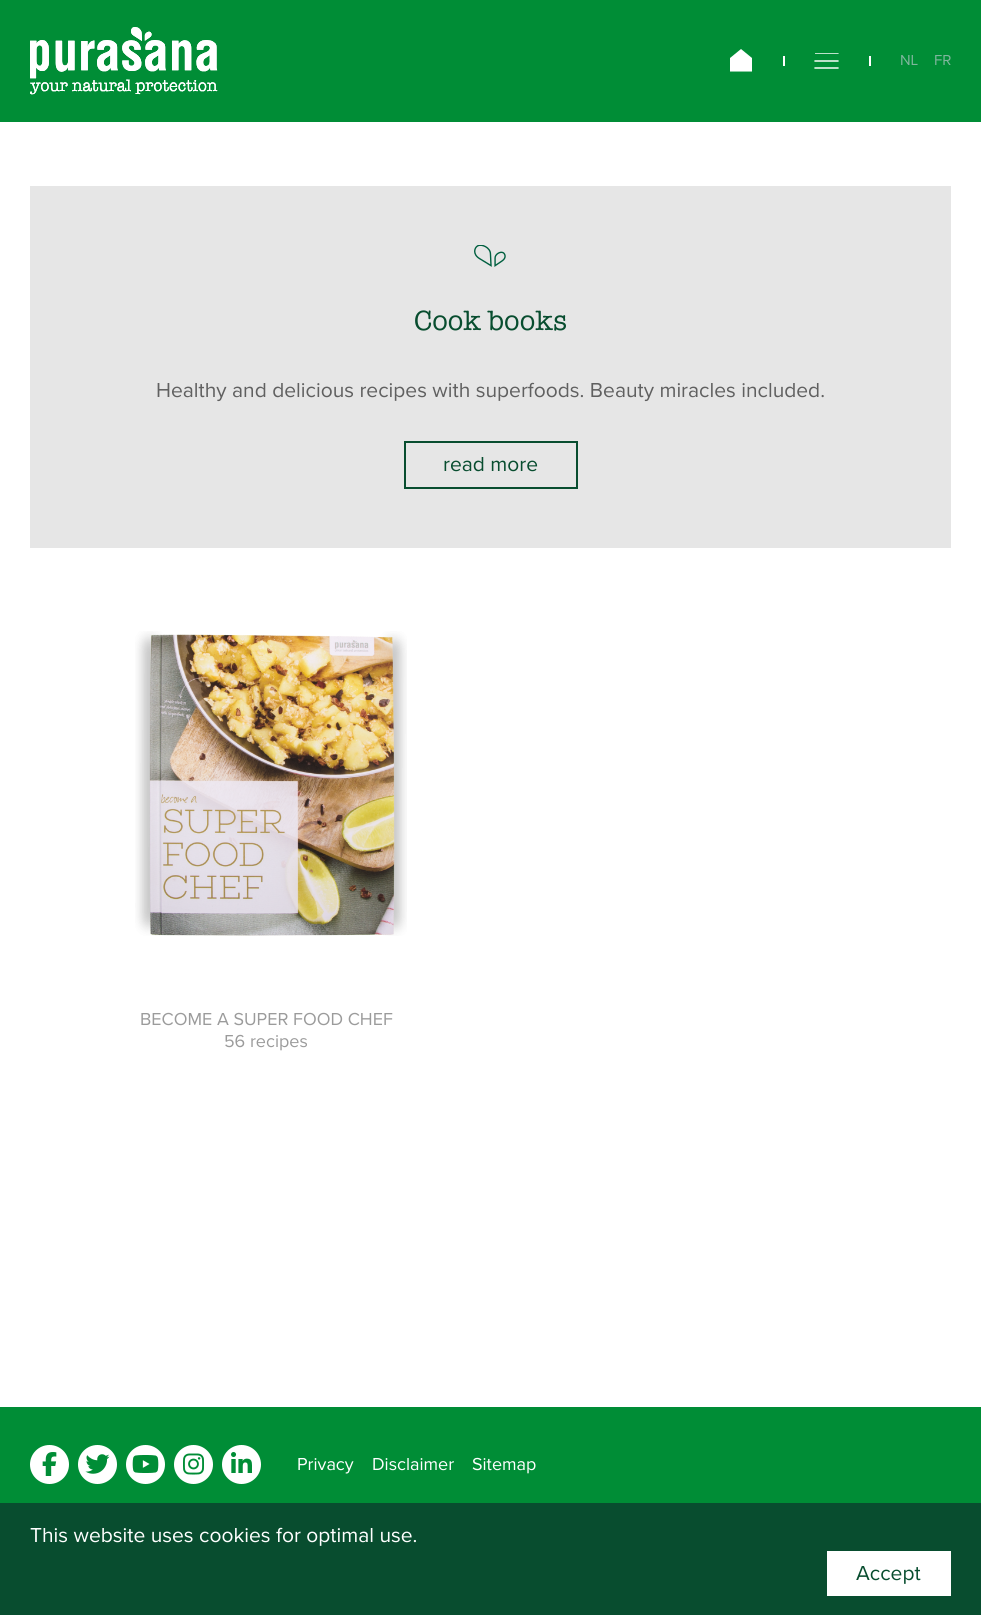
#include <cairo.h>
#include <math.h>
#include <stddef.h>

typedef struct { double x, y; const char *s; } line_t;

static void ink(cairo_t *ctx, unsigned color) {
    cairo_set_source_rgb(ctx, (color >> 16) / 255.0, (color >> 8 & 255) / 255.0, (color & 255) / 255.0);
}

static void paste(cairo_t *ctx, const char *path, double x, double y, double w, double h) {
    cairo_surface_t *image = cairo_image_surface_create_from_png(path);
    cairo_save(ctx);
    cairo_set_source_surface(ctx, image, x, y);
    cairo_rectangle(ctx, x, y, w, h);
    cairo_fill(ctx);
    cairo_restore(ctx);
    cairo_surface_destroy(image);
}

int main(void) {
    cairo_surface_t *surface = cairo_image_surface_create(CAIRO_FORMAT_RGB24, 981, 1615);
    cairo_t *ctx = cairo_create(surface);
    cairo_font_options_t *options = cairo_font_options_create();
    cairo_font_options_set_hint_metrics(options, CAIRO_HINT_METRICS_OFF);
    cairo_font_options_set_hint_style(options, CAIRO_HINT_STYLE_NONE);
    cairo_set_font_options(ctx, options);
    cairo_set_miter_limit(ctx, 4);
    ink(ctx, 0xFFFFFF);
    cairo_paint(ctx);
    ink(ctx, 0x008D36);
    cairo_rectangle(ctx, 0, 0, 981, 122);
    cairo_fill(ctx);
    paste(ctx, "media/1.png", 30, 27, 188, 68);
    ink(ctx, 0xFFFFFF);
    cairo_new_path(ctx);
    cairo_move_to(ctx, 752, 58);
    cairo_line_to(ctx, 741, 49);
    cairo_line_to(ctx, 730, 58);
    cairo_line_to(ctx, 730, 71.5);
    cairo_line_to(ctx, 752, 71.5);
    cairo_fill(ctx);
    cairo_rectangle(ctx, 783, 56, 2, 10);
    cairo_fill(ctx);
    cairo_save(ctx);
    cairo_rectangle(ctx, 815, 53, 24, 16);
    cairo_clip(ctx);
    cairo_new_path(ctx);
    cairo_move_to(ctx, 815, 53);
    cairo_line_to(ctx, 838, 53);
    cairo_set_line_width(ctx, 1.5);
    cairo_set_line_cap(ctx, CAIRO_LINE_CAP_ROUND);
    cairo_stroke(ctx);
    cairo_restore(ctx);
    cairo_new_path(ctx);
    cairo_move_to(ctx, 815, 61);
    cairo_line_to(ctx, 838, 61);
    cairo_move_to(ctx, 815, 68);
    cairo_line_to(ctx, 838, 68);
    cairo_set_line_width(ctx, 1.5);
    cairo_set_line_cap(ctx, CAIRO_LINE_CAP_ROUND);
    cairo_stroke(ctx);
    cairo_rectangle(ctx, 869, 56, 2, 10);
    cairo_fill(ctx);
    cairo_select_font_face(ctx, "Proxima Nova", CAIRO_FONT_SLANT_NORMAL, CAIRO_FONT_WEIGHT_NORMAL);
    cairo_set_font_size(ctx, 15);
    ink(ctx, 0x80B69D);
    cairo_move_to(ctx, 900, 65);
    cairo_show_text(ctx, "NL");
    cairo_move_to(ctx, 934, 65);
    cairo_show_text(ctx, "FR");
    ink(ctx, 0xE6E6E6);
    cairo_rectangle(ctx, 30, 186, 921, 362);
    cairo_fill(ctx);
    paste(ctx, "media/2.png", 474, 245, 32, 22);
    cairo_select_font_face(ctx, "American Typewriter", CAIRO_FONT_SLANT_NORMAL, CAIRO_FONT_WEIGHT_NORMAL);
    cairo_set_font_size(ctx, 28.5);
    ink(ctx, 0x084D2F);
    cairo_move_to(ctx, 414, 330);
    cairo_show_text(ctx, "Cook books");
    cairo_select_font_face(ctx, "Proxima Nova", CAIRO_FONT_SLANT_NORMAL, CAIRO_FONT_WEIGHT_NORMAL);
    cairo_set_font_size(ctx, 21);
    ink(ctx, 0x606060);
    cairo_move_to(ctx, 156, 397);
    cairo_show_text(ctx, "Healthy and delicious recipes with superfoods. Beauty miracles included.");
    cairo_rectangle(ctx, 405, 442, 172, 46);
    ink(ctx, 0x084D2F);
    cairo_set_line_width(ctx, 2);
    cairo_set_line_cap(ctx, CAIRO_LINE_CAP_BUTT);
    cairo_stroke(ctx);
    cairo_move_to(ctx, 443, 471);
    cairo_show_text(ctx, "read more");
    paste(ctx, "media/3.png", 135, 631, 272, 305);
    cairo_set_font_size(ctx, 18);
    ink(ctx, 0x9B9B9B);
    cairo_move_to(ctx, 140, 1025);
    cairo_show_text(ctx, "BECOME A SUPER FOOD CHEF");
    cairo_move_to(ctx, 224, 1047);
    cairo_show_text(ctx, "56 recipes");
    ink(ctx, 0x008D36);
    cairo_rectangle(ctx, 0, 1407, 981, 96);
    cairo_fill(ctx);
    ink(ctx, 0xFFFFFF);
    cairo_arc(ctx, 49.5, 1464.5, 19.5, 0, 2 * M_PI);
    cairo_fill(ctx);
    paste(ctx, "media/4.png", 42, 1452, 15, 24);
    cairo_arc(ctx, 97.5, 1464.5, 19.5, 0, 2 * M_PI);
    cairo_fill(ctx);
    paste(ctx, "media/5.png", 85, 1454, 25, 20);
    cairo_arc(ctx, 145.5, 1464.5, 19.5, 0, 2 * M_PI);
    cairo_fill(ctx);
    paste(ctx, "media/6.png", 132, 1455, 27, 18);
    cairo_arc(ctx, 193.5, 1464.5, 19.5, 0, 2 * M_PI);
    cairo_fill(ctx);
    paste(ctx, "media/7.png", 183, 1453, 21, 22);
    cairo_arc(ctx, 241.5, 1464.5, 19.5, 0, 2 * M_PI);
    cairo_fill(ctx);
    paste(ctx, "media/8.png", 231, 1452, 21, 21);
    {
        static const line_t items[] = {
            {297, 1470, "Privacy"},
            {372, 1470, "Disclaimer"},
            {472, 1470, "Sitemap"},
        };
        for (size_t i = 0; i < sizeof items / sizeof *items; i++) {
            cairo_move_to(ctx, items[i].x, items[i].y);
            cairo_show_text(ctx, items[i].s);
        }
    }
    ink(ctx, 0x084D2F);
    cairo_rectangle(ctx, 0, 1503, 981, 112);
    cairo_fill(ctx);
    cairo_set_font_size(ctx, 21);
    ink(ctx, 0xFFFFFF);
    cairo_move_to(ctx, 30, 1542);
    cairo_show_text(ctx, "This website uses cookies for optimal use.");
    cairo_rectangle(ctx, 827, 1551, 124, 45);
    cairo_fill(ctx);
    ink(ctx, 0x084D2F);
    cairo_move_to(ctx, 856, 1580);
    cairo_show_text(ctx, "Accept");
    cairo_surface_write_to_png(surface, "image.png");
    cairo_font_options_destroy(options);
    cairo_destroy(ctx);
    cairo_surface_destroy(surface);
    return 0;
}
